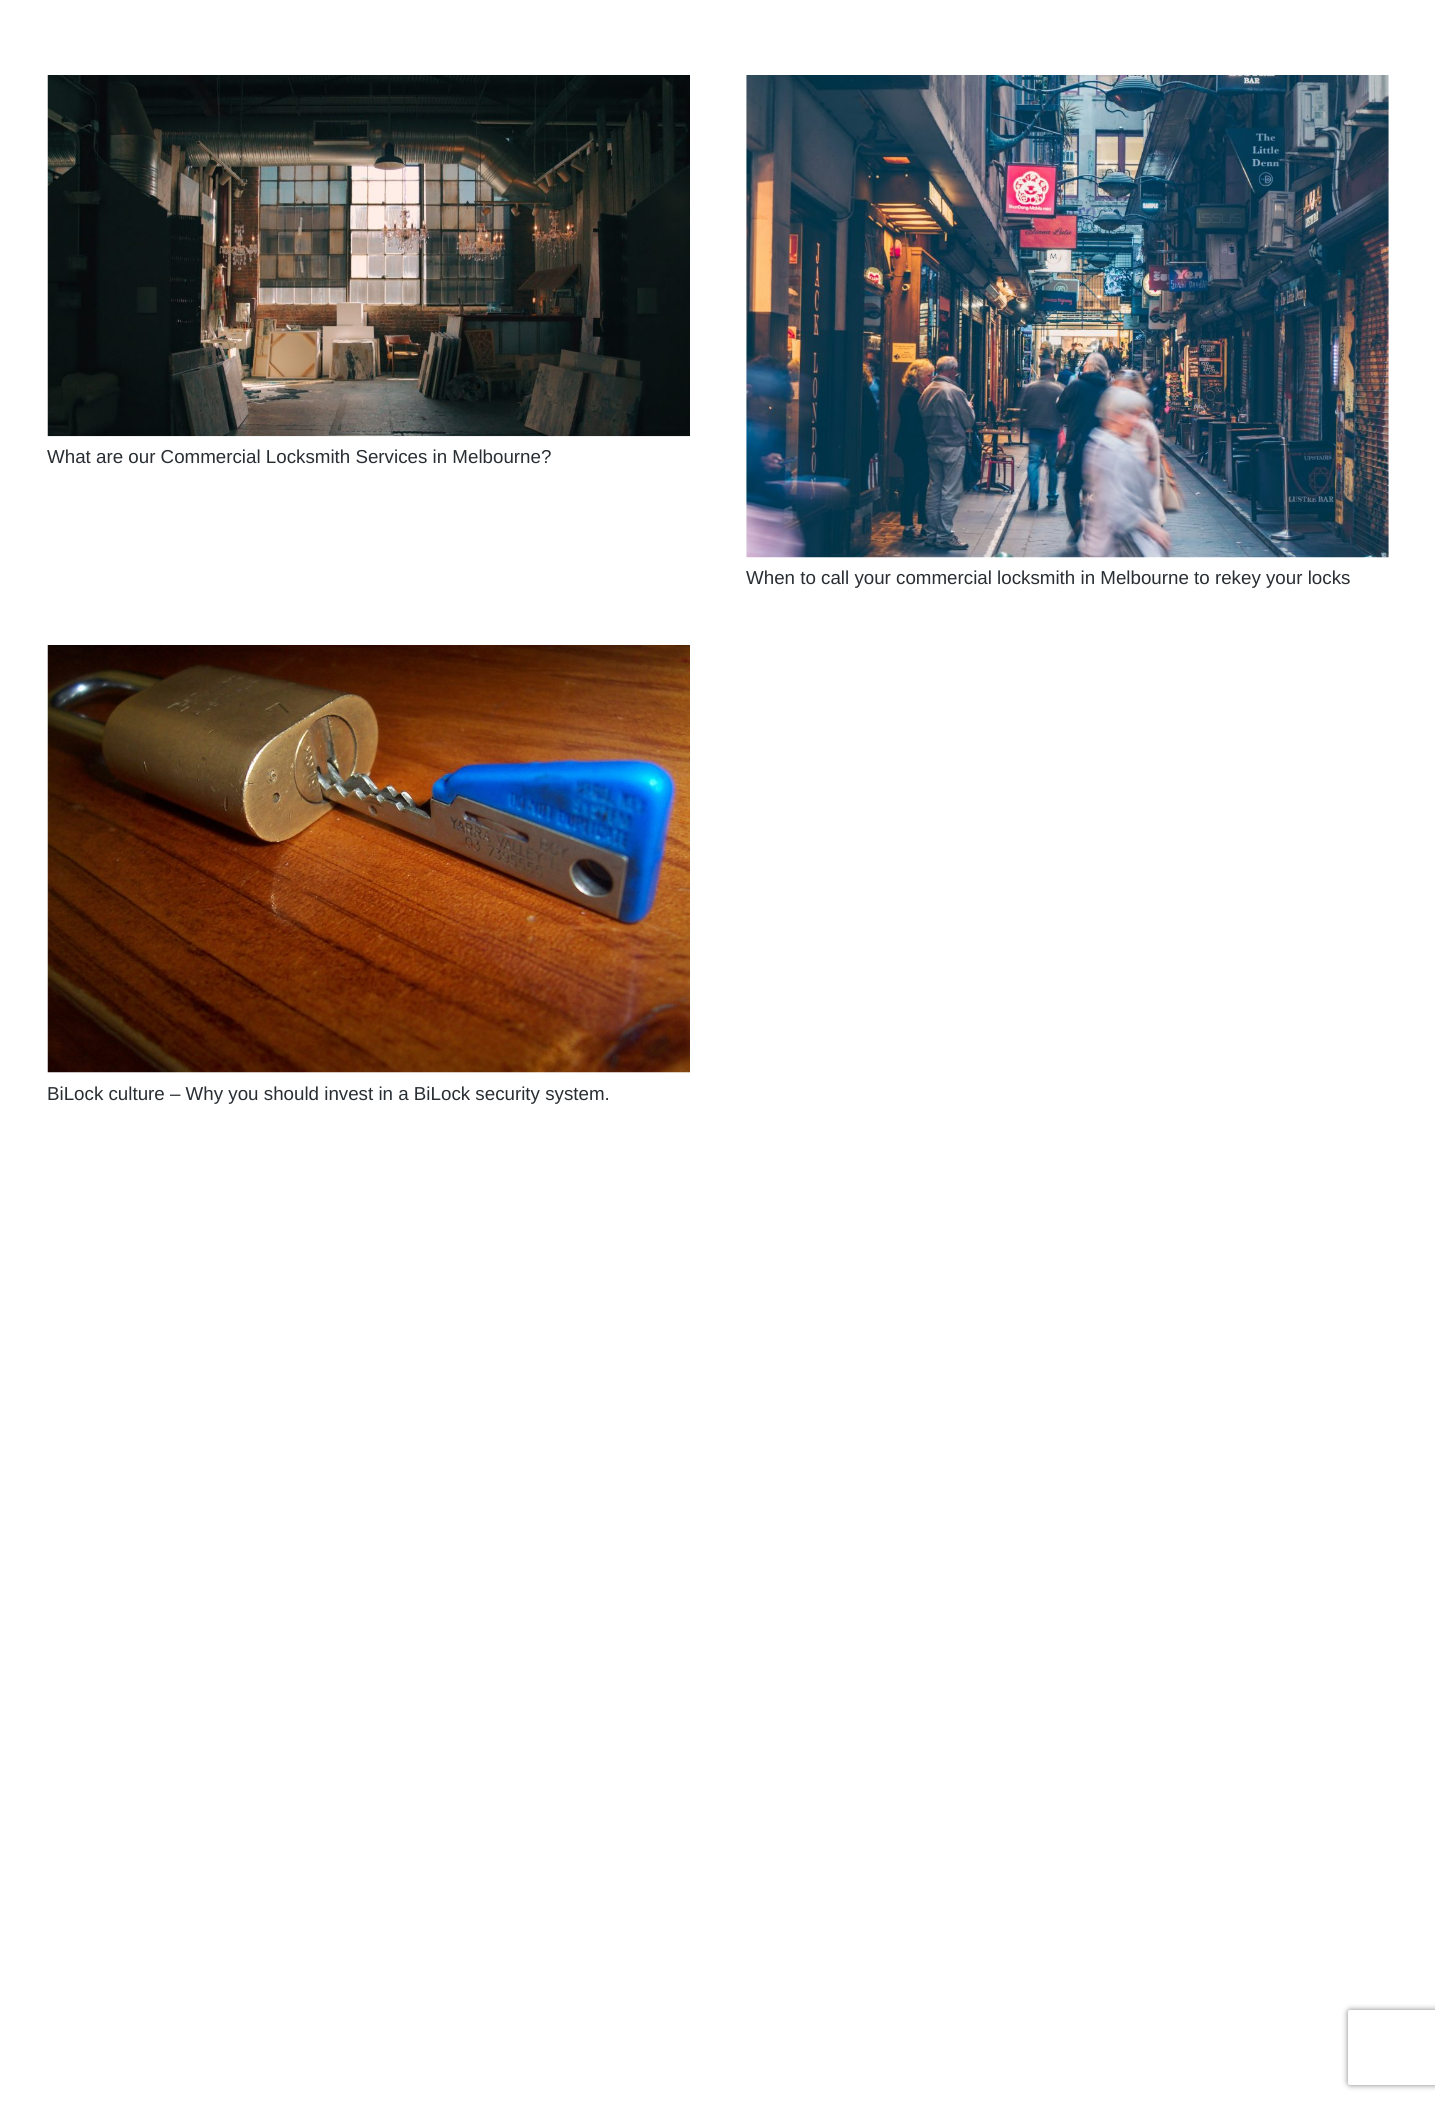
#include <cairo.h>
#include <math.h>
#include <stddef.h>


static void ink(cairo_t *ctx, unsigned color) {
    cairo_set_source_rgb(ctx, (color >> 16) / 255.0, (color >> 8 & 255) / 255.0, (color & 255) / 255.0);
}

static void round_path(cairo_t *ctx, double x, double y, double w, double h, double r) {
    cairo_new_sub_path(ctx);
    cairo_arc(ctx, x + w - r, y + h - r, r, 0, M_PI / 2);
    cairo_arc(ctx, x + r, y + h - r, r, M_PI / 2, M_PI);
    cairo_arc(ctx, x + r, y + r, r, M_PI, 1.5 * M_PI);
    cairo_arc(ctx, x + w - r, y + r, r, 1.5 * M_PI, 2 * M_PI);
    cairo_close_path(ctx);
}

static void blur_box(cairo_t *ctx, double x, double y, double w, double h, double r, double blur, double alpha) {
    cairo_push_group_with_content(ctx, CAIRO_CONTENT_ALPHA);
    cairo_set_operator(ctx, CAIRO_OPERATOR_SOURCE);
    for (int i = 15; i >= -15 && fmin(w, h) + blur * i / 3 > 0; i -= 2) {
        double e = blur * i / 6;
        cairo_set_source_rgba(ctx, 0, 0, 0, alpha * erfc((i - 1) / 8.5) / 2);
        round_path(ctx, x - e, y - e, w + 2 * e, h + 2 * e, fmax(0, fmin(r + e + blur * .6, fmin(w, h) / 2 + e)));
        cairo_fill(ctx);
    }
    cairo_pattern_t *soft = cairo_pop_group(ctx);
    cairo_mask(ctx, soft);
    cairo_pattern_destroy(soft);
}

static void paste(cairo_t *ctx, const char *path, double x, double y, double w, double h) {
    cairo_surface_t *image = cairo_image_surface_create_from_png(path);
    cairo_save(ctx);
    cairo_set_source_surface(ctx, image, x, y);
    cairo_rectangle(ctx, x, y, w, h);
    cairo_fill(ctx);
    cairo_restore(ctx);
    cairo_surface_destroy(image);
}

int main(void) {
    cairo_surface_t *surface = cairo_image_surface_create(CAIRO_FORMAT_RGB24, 1435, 2102);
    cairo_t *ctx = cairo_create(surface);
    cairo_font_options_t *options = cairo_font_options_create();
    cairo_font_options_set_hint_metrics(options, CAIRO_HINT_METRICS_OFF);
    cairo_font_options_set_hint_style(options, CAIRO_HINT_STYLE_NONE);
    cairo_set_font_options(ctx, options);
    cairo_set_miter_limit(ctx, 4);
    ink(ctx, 0xFFFFFF);
    cairo_paint(ctx);
    paste(ctx, "media/1.png", 47, 75, 643, 362);
    cairo_select_font_face(ctx, "Liberation Sans", CAIRO_FONT_SLANT_NORMAL, CAIRO_FONT_WEIGHT_NORMAL);
    cairo_set_font_size(ctx, 18.75);
    ink(ctx, 0x292E33);
    cairo_move_to(ctx, 47, 463);
    cairo_show_text(ctx, "What are our Commercial Locksmith Services in Melbourne?");
    paste(ctx, "media/2.png", 746, 75, 643, 483);
    cairo_move_to(ctx, 746, 584);
    cairo_show_text(ctx, "When to call your commercial locksmith in Melbourne to rekey your locks");
    paste(ctx, "media/3.png", 47, 645, 643, 428);
    cairo_move_to(ctx, 47, 1100);
    cairo_show_text(ctx, "BiLock culture – Why you should invest in a BiLock security system.");
    cairo_save(ctx);
    cairo_set_fill_rule(ctx, CAIRO_FILL_RULE_EVEN_ODD);
    cairo_new_path(ctx);
    cairo_move_to(ctx, 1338, 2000);
    cairo_line_to(ctx, 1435, 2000);
    cairo_line_to(ctx, 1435, 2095);
    cairo_line_to(ctx, 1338, 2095);
    cairo_close_path(ctx);
    cairo_move_to(ctx, 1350.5, 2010);
    cairo_line_to(ctx, 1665.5, 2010);
    cairo_curve_to(ctx, 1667, 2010, 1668, 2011, 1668, 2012.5);
    cairo_line_to(ctx, 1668, 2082.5);
    cairo_curve_to(ctx, 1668, 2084, 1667, 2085, 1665.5, 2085);
    cairo_line_to(ctx, 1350.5, 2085);
    cairo_curve_to(ctx, 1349, 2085, 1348, 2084, 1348, 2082.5);
    cairo_line_to(ctx, 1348, 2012.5);
    cairo_curve_to(ctx, 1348, 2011, 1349, 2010, 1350.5, 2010);
    cairo_close_path(ctx);
    cairo_clip(ctx);
    ink(ctx, 0x808080);
    blur_box(ctx, 1348, 2010, 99, 75, 2.5, 3, 1);
    cairo_restore(ctx);
    cairo_surface_write_to_png(surface, "image.png");
    cairo_font_options_destroy(options);
    cairo_destroy(ctx);
    cairo_surface_destroy(surface);
    return 0;
}
